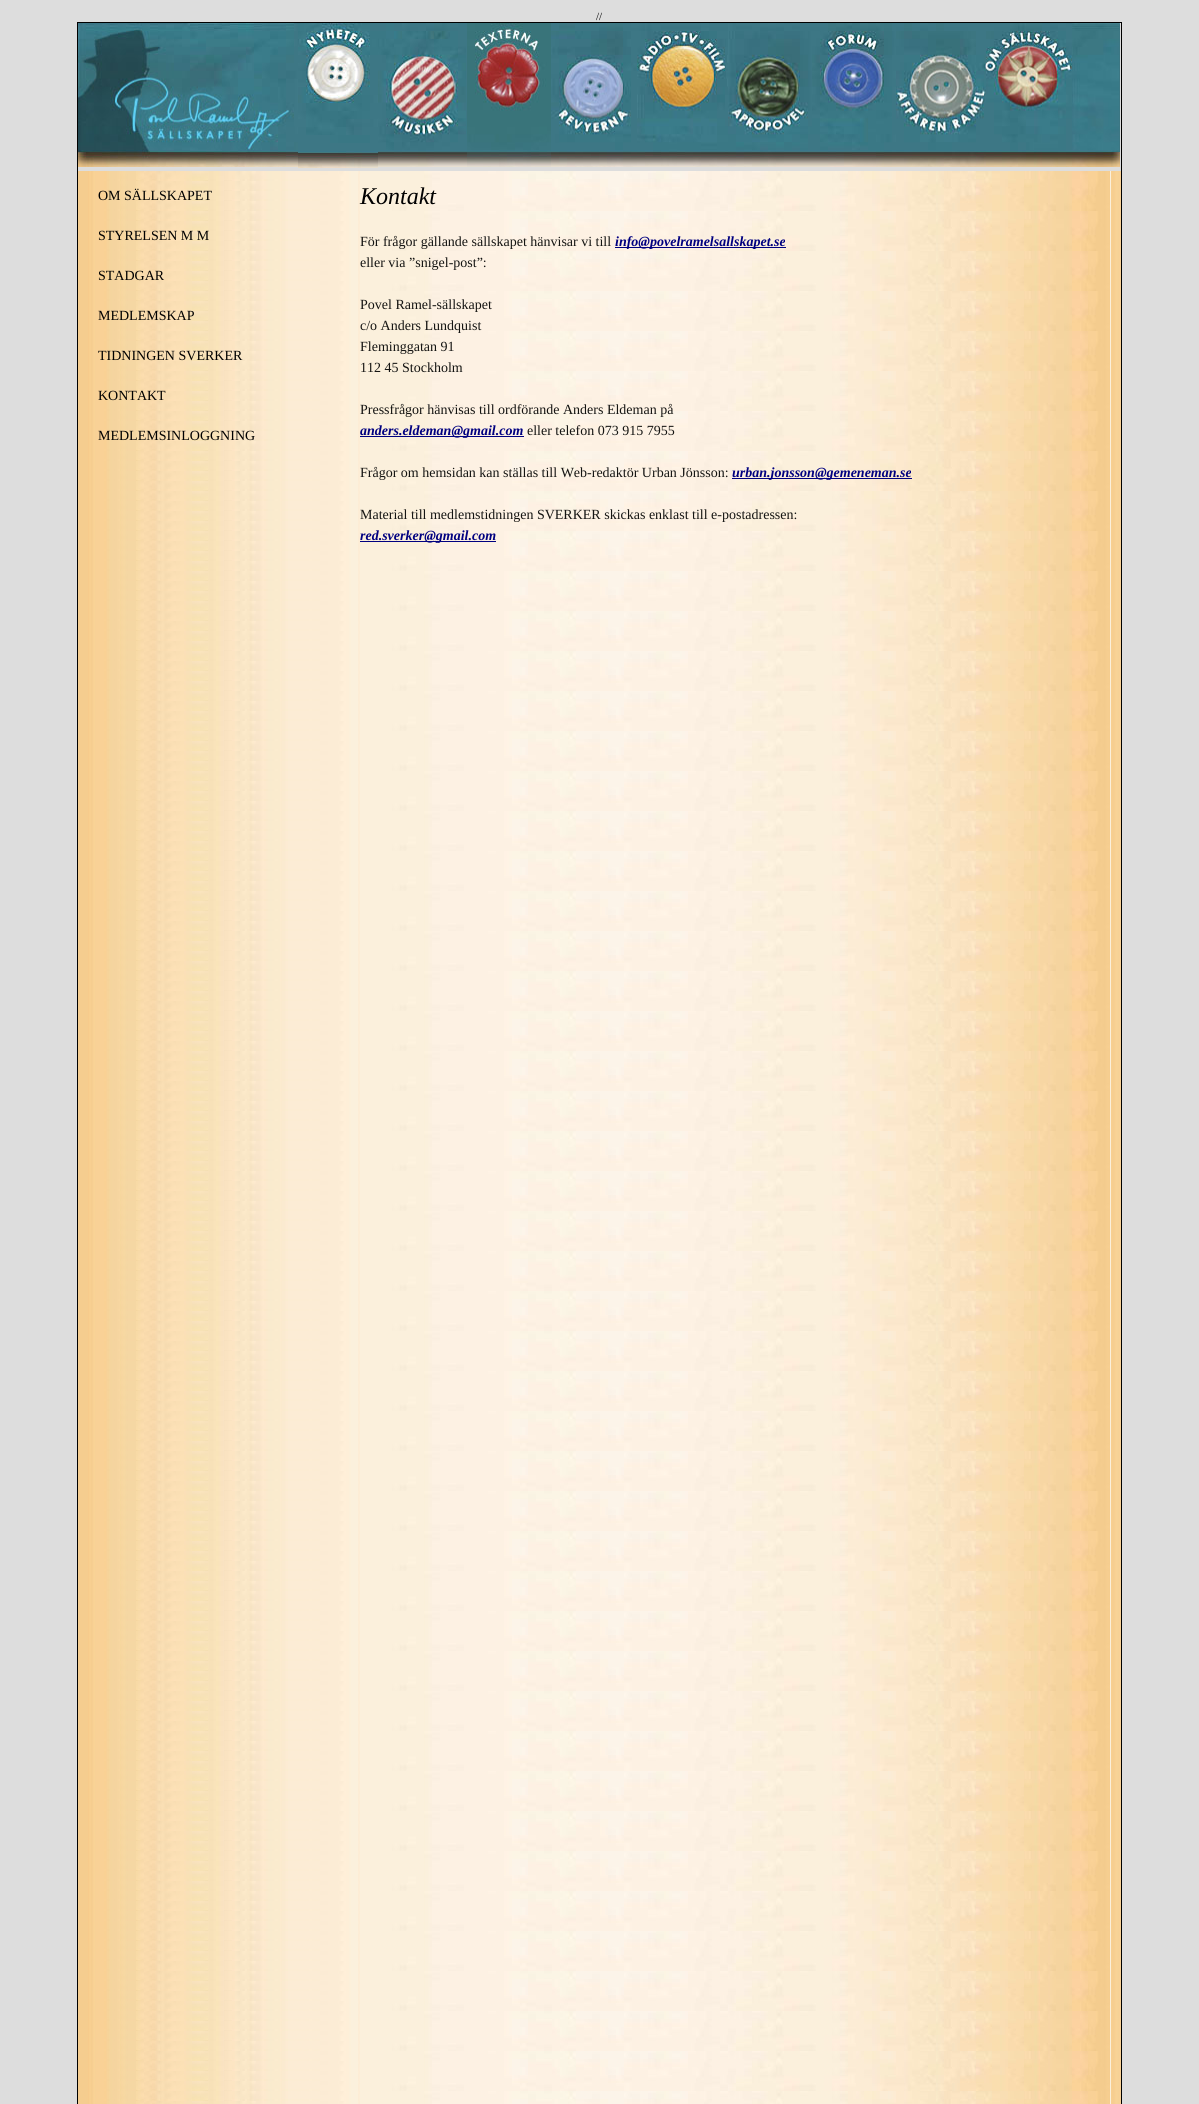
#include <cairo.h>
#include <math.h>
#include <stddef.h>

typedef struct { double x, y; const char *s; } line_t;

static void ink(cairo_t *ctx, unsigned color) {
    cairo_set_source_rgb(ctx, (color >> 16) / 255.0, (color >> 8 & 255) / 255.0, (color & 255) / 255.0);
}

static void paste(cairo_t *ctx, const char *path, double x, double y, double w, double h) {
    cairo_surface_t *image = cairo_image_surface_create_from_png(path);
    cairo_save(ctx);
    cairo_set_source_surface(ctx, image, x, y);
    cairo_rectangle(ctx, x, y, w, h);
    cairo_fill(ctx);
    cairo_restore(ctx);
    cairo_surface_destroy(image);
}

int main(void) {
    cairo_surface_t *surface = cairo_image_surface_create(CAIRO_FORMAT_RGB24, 1199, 2104);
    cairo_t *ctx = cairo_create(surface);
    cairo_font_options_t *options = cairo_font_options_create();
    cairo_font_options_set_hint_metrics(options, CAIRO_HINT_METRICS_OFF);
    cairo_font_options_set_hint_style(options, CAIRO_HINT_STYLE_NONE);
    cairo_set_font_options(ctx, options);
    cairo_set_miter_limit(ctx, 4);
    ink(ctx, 0xDDDDDD);
    cairo_paint(ctx);
    cairo_select_font_face(ctx, "Liberation Serif", CAIRO_FONT_SLANT_NORMAL, CAIRO_FONT_WEIGHT_NORMAL);
    cairo_set_font_size(ctx, 11);
    ink(ctx, 0x000000);
    cairo_move_to(ctx, 596, 20);
    cairo_show_text(ctx, "//");
    cairo_rectangle(ctx, 77.5, 22.5, 1044, 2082);
    cairo_set_line_width(ctx, 1);
    cairo_stroke(ctx);
    paste(ctx, "media/1.png", 78, 23, 220, 144);
    paste(ctx, "media/2.png", 298, 23, 80, 145);
    paste(ctx, "media/3.png", 378, 23, 89, 144);
    paste(ctx, "media/4.png", 467, 23, 84, 144);
    paste(ctx, "media/5.png", 551, 23, 86, 144);
    paste(ctx, "media/6.png", 637, 23, 91, 144);
    paste(ctx, "media/7.png", 728, 23, 84, 144);
    paste(ctx, "media/8.png", 812, 23, 84, 144);
    paste(ctx, "media/9.png", 896, 23, 90, 144);
    paste(ctx, "media/10.png", 986, 23, 86, 144);
    paste(ctx, "media/11.png", 1072, 23, 48, 144);
    ink(ctx, 0xF5CD8F);
    cairo_rectangle(ctx, 78, 171, 10, 1933);
    cairo_fill(ctx);
    paste(ctx, "media/12.png", 88, 171, 250, 1933);
    cairo_set_font_size(ctx, 14);
    ink(ctx, 0x000000);
    {
        static const line_t items[] = {
            {98, 200, "OM SÄLLSKAPET"},
            {98, 240, "STYRELSEN M M"},
            {98, 280, "STADGAR"},
            {98, 320, "MEDLEMSKAP"},
            {98, 360, "TIDNINGEN SVERKER"},
            {98, 400, "KONTAKT"},
            {98, 440, "MEDLEMSINLOGGNING"},
        };
        for (size_t i = 0; i < sizeof items / sizeof *items; i++) {
            cairo_move_to(ctx, items[i].x, items[i].y);
            cairo_show_text(ctx, items[i].s);
        }
    }
    paste(ctx, "media/13.png", 338, 171, 22, 1933);
    paste(ctx, "media/14.png", 360, 171, 751, 1933);
    cairo_select_font_face(ctx, "Liberation Serif", CAIRO_FONT_SLANT_ITALIC, CAIRO_FONT_WEIGHT_NORMAL);
    cairo_set_font_size(ctx, 24);
    cairo_move_to(ctx, 360, 204);
    cairo_show_text(ctx, "Kontakt");
    cairo_select_font_face(ctx, "Liberation Serif", CAIRO_FONT_SLANT_NORMAL, CAIRO_FONT_WEIGHT_NORMAL);
    cairo_set_font_size(ctx, 14);
    ink(ctx, 0x141412);
    cairo_move_to(ctx, 360, 246);
    cairo_show_text(ctx, "För frågor gällande sällskapet hänvisar vi till");
    ink(ctx, 0x000080);
    cairo_rectangle(ctx, 615, 247, 171, 1);
    cairo_fill(ctx);
    cairo_select_font_face(ctx, "Liberation Serif", CAIRO_FONT_SLANT_ITALIC, CAIRO_FONT_WEIGHT_BOLD);
    cairo_move_to(ctx, 615, 246);
    cairo_show_text(ctx, "info@povelramelsallskapet.se");
    cairo_select_font_face(ctx, "Liberation Serif", CAIRO_FONT_SLANT_NORMAL, CAIRO_FONT_WEIGHT_NORMAL);
    ink(ctx, 0x141412);
    {
        static const line_t items[] = {
            {360, 267, "eller via ”snigel-post”:"},
            {360, 309, "Povel Ramel-sällskapet"},
            {360, 330, "c/o Anders Lundquist"},
            {360, 351, "Fleminggatan 91"},
            {360, 372, "112 45 Stockholm"},
            {360, 414, "Pressfrågor hänvisas till ordförande Anders Eldeman på"},
        };
        for (size_t i = 0; i < sizeof items / sizeof *items; i++) {
            cairo_move_to(ctx, items[i].x, items[i].y);
            cairo_show_text(ctx, items[i].s);
        }
    }
    ink(ctx, 0x000080);
    cairo_rectangle(ctx, 360, 436, 164, 1);
    cairo_fill(ctx);
    cairo_select_font_face(ctx, "Liberation Serif", CAIRO_FONT_SLANT_ITALIC, CAIRO_FONT_WEIGHT_BOLD);
    cairo_move_to(ctx, 360, 435);
    cairo_show_text(ctx, "anders.eldeman@gmail.com");
    cairo_select_font_face(ctx, "Liberation Serif", CAIRO_FONT_SLANT_NORMAL, CAIRO_FONT_WEIGHT_NORMAL);
    ink(ctx, 0x141412);
    cairo_move_to(ctx, 527, 435);
    cairo_show_text(ctx, "eller telefon 073 915 7955");
    cairo_move_to(ctx, 360, 477);
    cairo_show_text(ctx, "Frågor om hemsidan kan ställas till Web-redaktör Urban Jönsson:");
    ink(ctx, 0x000080);
    cairo_rectangle(ctx, 732, 478, 180, 1);
    cairo_fill(ctx);
    cairo_select_font_face(ctx, "Liberation Serif", CAIRO_FONT_SLANT_ITALIC, CAIRO_FONT_WEIGHT_BOLD);
    cairo_move_to(ctx, 732, 477);
    cairo_show_text(ctx, "urban.jonsson@gemeneman.se");
    cairo_select_font_face(ctx, "Liberation Serif", CAIRO_FONT_SLANT_NORMAL, CAIRO_FONT_WEIGHT_NORMAL);
    ink(ctx, 0x141412);
    cairo_move_to(ctx, 360, 519);
    cairo_show_text(ctx, "Material till medlemstidningen SVERKER skickas enklast till e-postadressen:");
    ink(ctx, 0x000080);
    cairo_rectangle(ctx, 360, 541, 136, 1);
    cairo_fill(ctx);
    cairo_select_font_face(ctx, "Liberation Serif", CAIRO_FONT_SLANT_ITALIC, CAIRO_FONT_WEIGHT_BOLD);
    cairo_move_to(ctx, 360, 540);
    cairo_show_text(ctx, "red.sverker@gmail.com");
    paste(ctx, "media/15.png", 1111, 171, 10, 1933);
    cairo_surface_write_to_png(surface, "image.png");
    cairo_font_options_destroy(options);
    cairo_destroy(ctx);
    cairo_surface_destroy(surface);
    return 0;
}
